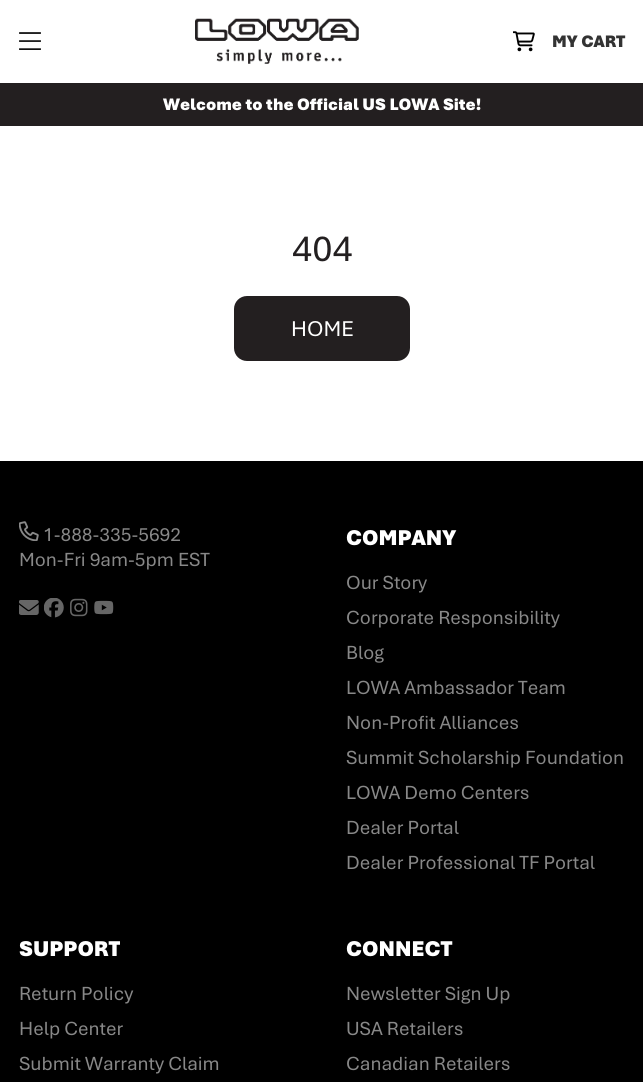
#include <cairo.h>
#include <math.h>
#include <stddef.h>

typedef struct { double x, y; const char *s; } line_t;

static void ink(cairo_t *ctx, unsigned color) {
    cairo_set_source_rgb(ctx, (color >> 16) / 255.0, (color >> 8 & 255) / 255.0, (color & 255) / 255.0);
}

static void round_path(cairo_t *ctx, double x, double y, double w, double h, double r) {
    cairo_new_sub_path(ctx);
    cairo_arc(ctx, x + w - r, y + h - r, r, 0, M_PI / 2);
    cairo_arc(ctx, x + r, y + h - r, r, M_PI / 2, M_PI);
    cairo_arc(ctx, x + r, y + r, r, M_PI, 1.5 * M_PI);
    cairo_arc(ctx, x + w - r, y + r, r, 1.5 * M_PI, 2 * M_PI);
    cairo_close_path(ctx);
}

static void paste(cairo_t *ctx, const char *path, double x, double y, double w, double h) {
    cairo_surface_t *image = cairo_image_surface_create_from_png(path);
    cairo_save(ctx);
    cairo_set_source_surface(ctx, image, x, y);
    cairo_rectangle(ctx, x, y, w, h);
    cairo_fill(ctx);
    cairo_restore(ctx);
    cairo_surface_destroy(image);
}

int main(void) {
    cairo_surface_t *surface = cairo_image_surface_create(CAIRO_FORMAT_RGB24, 643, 1082);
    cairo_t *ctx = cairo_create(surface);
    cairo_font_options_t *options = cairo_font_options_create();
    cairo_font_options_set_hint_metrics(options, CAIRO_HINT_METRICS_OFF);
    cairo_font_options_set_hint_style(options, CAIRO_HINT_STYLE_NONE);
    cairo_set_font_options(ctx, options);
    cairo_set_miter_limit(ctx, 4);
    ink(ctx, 0xFFFFFF);
    cairo_paint(ctx);
    paste(ctx, "media/1.png", 19, 32, 22, 18);
    paste(ctx, "media/2.png", 195, 18, 164, 46);
    paste(ctx, "media/3.png", 513, 31, 22, 21);
    cairo_select_font_face(ctx, "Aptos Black", CAIRO_FONT_SLANT_NORMAL, CAIRO_FONT_WEIGHT_NORMAL);
    cairo_set_font_size(ctx, 17.5);
    ink(ctx, 0x333333);
    cairo_move_to(ctx, 552, 47);
    cairo_show_text(ctx, "MY CART");
    ink(ctx, 0x231F20);
    cairo_rectangle(ctx, 0, 83, 643, 43);
    cairo_fill(ctx);
    ink(ctx, 0xFFFFFF);
    cairo_move_to(ctx, 163, 110);
    cairo_show_text(ctx, "Welcome to the Official US LOWA Site!");
    cairo_select_font_face(ctx, "Aptos", CAIRO_FONT_SLANT_NORMAL, CAIRO_FONT_WEIGHT_NORMAL);
    cairo_set_font_size(ctx, 38);
    ink(ctx, 0x231F20);
    cairo_move_to(ctx, 292, 261);
    cairo_show_text(ctx, "404");
    round_path(ctx, 234, 296, 176, 65, 13);
    cairo_fill(ctx);
    cairo_set_font_size(ctx, 22.5);
    ink(ctx, 0xFFFFFF);
    cairo_move_to(ctx, 291, 336);
    cairo_show_text(ctx, "HOME");
    ink(ctx, 0x000000);
    cairo_rectangle(ctx, 0, 461, 643, 621);
    cairo_fill(ctx);
    paste(ctx, "media/4.png", 19, 521, 20, 20);
    cairo_set_font_size(ctx, 20);
    ink(ctx, 0x888888);
    cairo_move_to(ctx, 43, 541);
    cairo_show_text(ctx, "1-888-335-5692");
    cairo_move_to(ctx, 19, 566);
    cairo_show_text(ctx, "Mon-Fri 9am-5pm EST");
    paste(ctx, "media/5.png", 19, 600, 20, 15);
    paste(ctx, "media/6.png", 44, 598, 20, 20);
    paste(ctx, "media/7.png", 70, 598, 18, 19);
    paste(ctx, "media/8.png", 94, 600, 20, 15);
    cairo_select_font_face(ctx, "Aptos Black", CAIRO_FONT_SLANT_NORMAL, CAIRO_FONT_WEIGHT_NORMAL);
    cairo_set_font_size(ctx, 22.5);
    ink(ctx, 0xFFFFFF);
    cairo_move_to(ctx, 346, 545);
    cairo_show_text(ctx, "COMPANY");
    cairo_select_font_face(ctx, "Aptos", CAIRO_FONT_SLANT_NORMAL, CAIRO_FONT_WEIGHT_NORMAL);
    cairo_set_font_size(ctx, 20);
    ink(ctx, 0x888888);
    {
        static const line_t items[] = {
            {346, 589, "Our Story"},
            {346, 624, "Corporate Responsibility"},
            {346, 659, "Blog"},
            {346, 694, "LOWA Ambassador Team"},
            {346, 729, "Non-Profit Alliances"},
            {346, 764, "Summit Scholarship Foundation"},
            {346, 799, "LOWA Demo Centers"},
            {346, 834, "Dealer Portal"},
            {346, 869, "Dealer Professional TF Portal"},
        };
        for (size_t i = 0; i < sizeof items / sizeof *items; i++) {
            cairo_move_to(ctx, items[i].x, items[i].y);
            cairo_show_text(ctx, items[i].s);
        }
    }
    cairo_select_font_face(ctx, "Aptos Black", CAIRO_FONT_SLANT_NORMAL, CAIRO_FONT_WEIGHT_NORMAL);
    cairo_set_font_size(ctx, 22.5);
    ink(ctx, 0xFFFFFF);
    cairo_move_to(ctx, 19, 956);
    cairo_show_text(ctx, "SUPPORT");
    cairo_select_font_face(ctx, "Aptos", CAIRO_FONT_SLANT_NORMAL, CAIRO_FONT_WEIGHT_NORMAL);
    cairo_set_font_size(ctx, 20);
    ink(ctx, 0x888888);
    {
        static const line_t items[] = {
            {19, 1000, "Return Policy"},
            {19, 1035, "Help Center"},
            {19, 1070, "Submit Warranty Claim"},
        };
        for (size_t i = 0; i < sizeof items / sizeof *items; i++) {
            cairo_move_to(ctx, items[i].x, items[i].y);
            cairo_show_text(ctx, items[i].s);
        }
    }
    cairo_select_font_face(ctx, "Aptos Black", CAIRO_FONT_SLANT_NORMAL, CAIRO_FONT_WEIGHT_NORMAL);
    cairo_set_font_size(ctx, 22.5);
    ink(ctx, 0xFFFFFF);
    cairo_move_to(ctx, 346, 956);
    cairo_show_text(ctx, "CONNECT");
    cairo_select_font_face(ctx, "Aptos", CAIRO_FONT_SLANT_NORMAL, CAIRO_FONT_WEIGHT_NORMAL);
    cairo_set_font_size(ctx, 20);
    ink(ctx, 0x888888);
    {
        static const line_t items[] = {
            {346, 1000, "Newsletter Sign Up"},
            {346, 1035, "USA Retailers"},
            {346, 1070, "Canadian Retailers"},
        };
        for (size_t i = 0; i < sizeof items / sizeof *items; i++) {
            cairo_move_to(ctx, items[i].x, items[i].y);
            cairo_show_text(ctx, items[i].s);
        }
    }
    cairo_surface_write_to_png(surface, "image.png");
    cairo_font_options_destroy(options);
    cairo_destroy(ctx);
    cairo_surface_destroy(surface);
    return 0;
}
